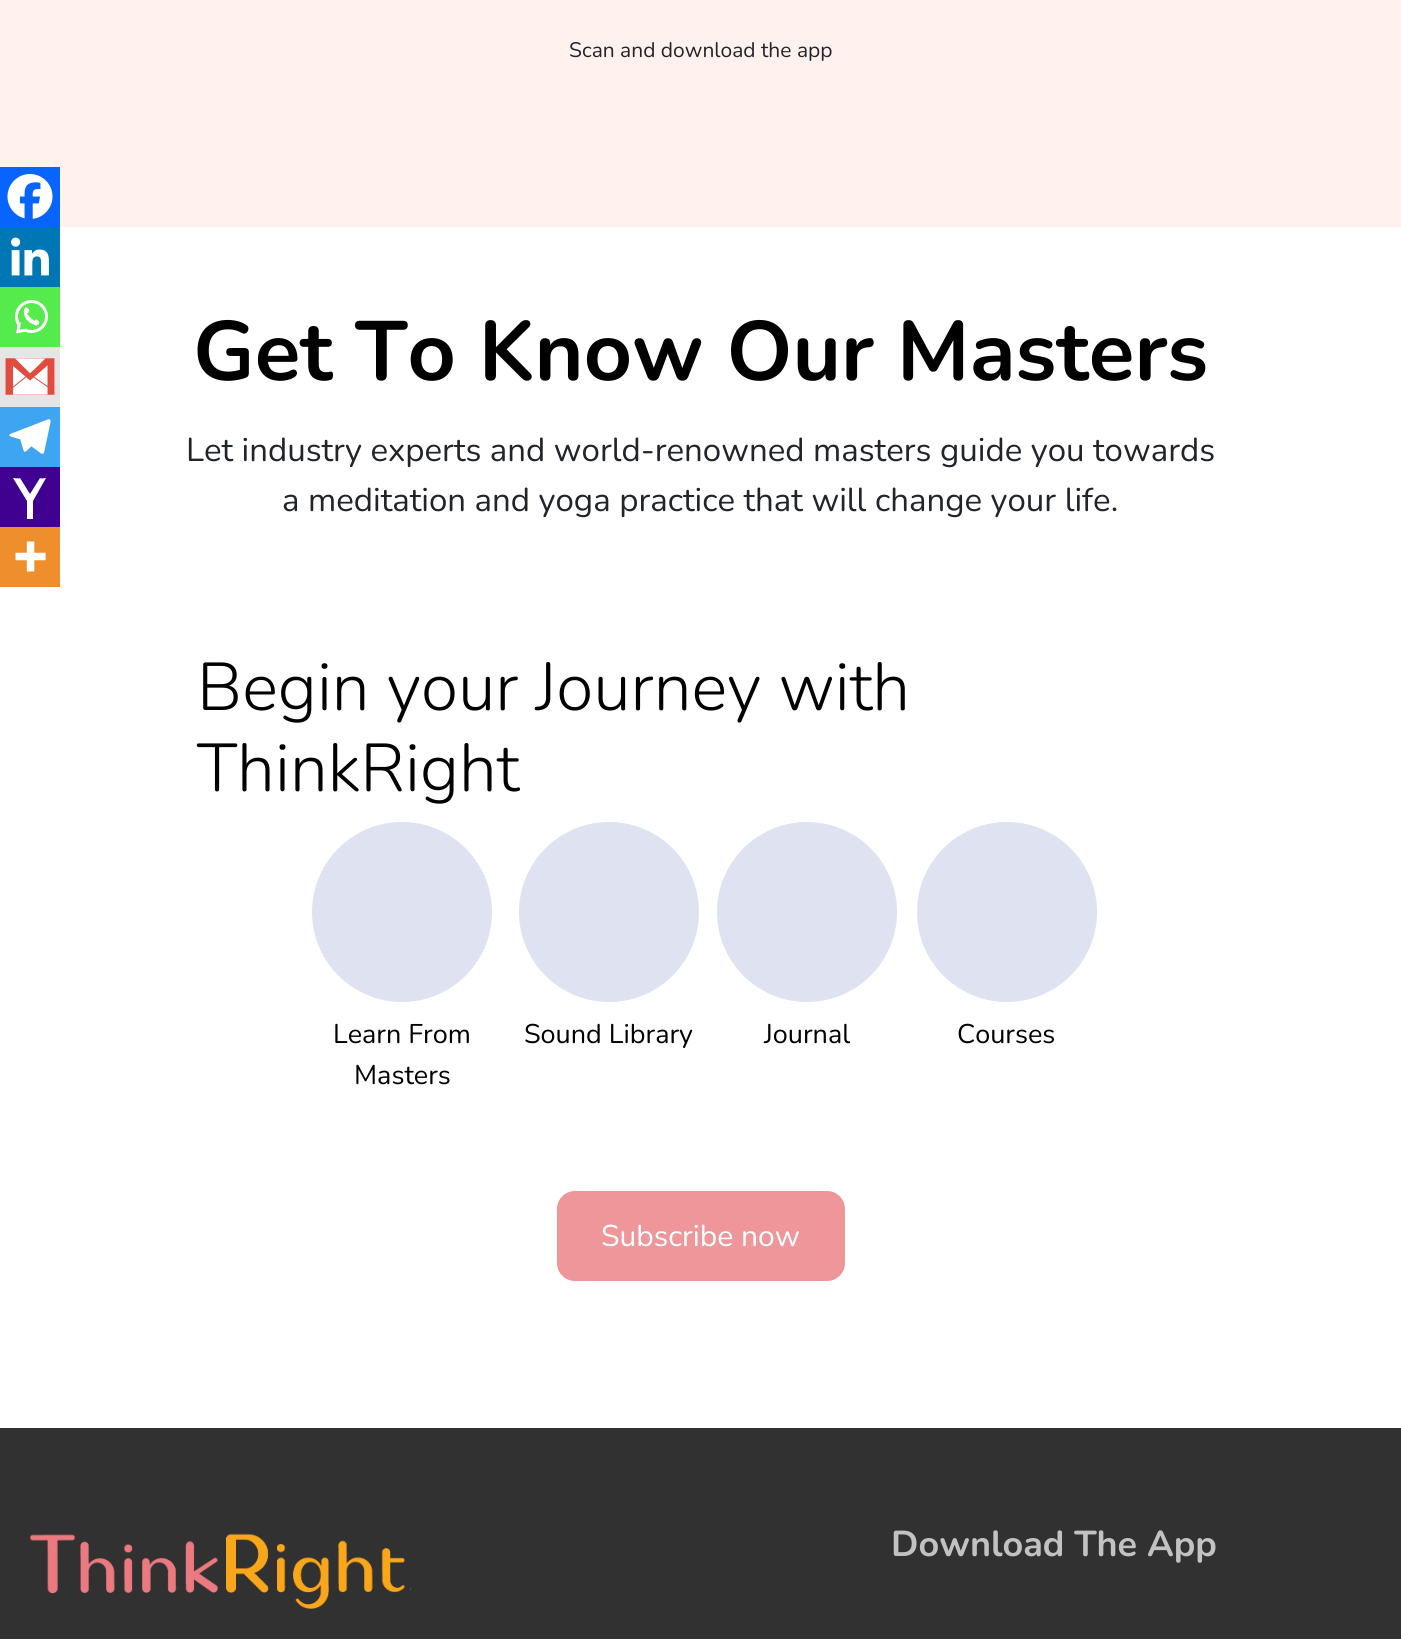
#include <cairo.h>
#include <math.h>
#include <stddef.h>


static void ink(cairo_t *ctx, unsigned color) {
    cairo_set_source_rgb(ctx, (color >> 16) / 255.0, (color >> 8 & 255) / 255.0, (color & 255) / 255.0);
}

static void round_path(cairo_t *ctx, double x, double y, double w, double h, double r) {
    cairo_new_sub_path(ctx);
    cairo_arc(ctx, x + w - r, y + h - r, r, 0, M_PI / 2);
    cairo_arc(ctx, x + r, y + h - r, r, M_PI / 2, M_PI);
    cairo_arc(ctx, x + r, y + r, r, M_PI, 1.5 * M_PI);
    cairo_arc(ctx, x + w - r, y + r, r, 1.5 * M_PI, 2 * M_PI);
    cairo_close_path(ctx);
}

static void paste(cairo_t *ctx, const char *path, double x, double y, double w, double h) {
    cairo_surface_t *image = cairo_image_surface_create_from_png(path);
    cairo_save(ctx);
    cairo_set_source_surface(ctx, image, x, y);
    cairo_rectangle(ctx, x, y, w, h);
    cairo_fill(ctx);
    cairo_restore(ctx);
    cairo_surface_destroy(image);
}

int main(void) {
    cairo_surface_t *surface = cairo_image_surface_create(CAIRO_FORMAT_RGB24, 1401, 1639);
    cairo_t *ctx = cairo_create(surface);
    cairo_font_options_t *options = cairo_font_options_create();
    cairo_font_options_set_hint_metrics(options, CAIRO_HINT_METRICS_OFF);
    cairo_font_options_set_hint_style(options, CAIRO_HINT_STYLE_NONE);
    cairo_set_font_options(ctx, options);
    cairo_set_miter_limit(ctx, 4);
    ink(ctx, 0xFFFFFF);
    cairo_paint(ctx);
    ink(ctx, 0xFFF1EE);
    cairo_rectangle(ctx, 0, 0, 1401, 227);
    cairo_fill(ctx);
    cairo_select_font_face(ctx, "Nunito", CAIRO_FONT_SLANT_NORMAL, CAIRO_FONT_WEIGHT_NORMAL);
    cairo_set_font_size(ctx, 21);
    ink(ctx, 0x212529);
    cairo_move_to(ctx, 569, 57);
    cairo_show_text(ctx, "Scan and download the app");
    ink(ctx, 0x0765FE);
    cairo_rectangle(ctx, 0, 167, 60, 60);
    cairo_fill(ctx);
    paste(ctx, "media/1.png", 7, 174, 46, 45);
    ink(ctx, 0x0077B5);
    cairo_rectangle(ctx, 0, 227, 60, 60);
    cairo_fill(ctx);
    paste(ctx, "media/2.png", 11, 237, 38, 39);
    ink(ctx, 0x55EB4C);
    cairo_rectangle(ctx, 0, 287, 60, 60);
    cairo_fill(ctx);
    paste(ctx, "media/3.png", 15, 300, 33, 34);
    ink(ctx, 0xE5E5E5);
    cairo_rectangle(ctx, 0, 347, 60, 60);
    cairo_fill(ctx);
    paste(ctx, "media/4.png", 5, 358, 50, 37);
    ink(ctx, 0x3DA5F1);
    cairo_rectangle(ctx, 0, 407, 60, 60);
    cairo_fill(ctx);
    paste(ctx, "media/5.png", 9, 419, 42, 35);
    ink(ctx, 0x400090);
    cairo_rectangle(ctx, 0, 467, 60, 60);
    cairo_fill(ctx);
    ink(ctx, 0xFFFFFF);
    cairo_new_path(ctx);
    cairo_move_to(ctx, 40, 478);
    cairo_curve_to(ctx, 42, 479, 44, 478, 46, 478);
    cairo_line_to(ctx, 33, 501);
    cairo_line_to(ctx, 33, 519);
    cairo_curve_to(ctx, 31, 519, 29, 519, 27, 519);
    cairo_line_to(ctx, 27, 501);
    cairo_line_to(ctx, 13, 478);
    cairo_curve_to(ctx, 16, 478, 18, 479, 20, 478);
    cairo_line_to(ctx, 30, 494);
    cairo_close_path(ctx);
    cairo_fill(ctx);
    ink(ctx, 0xEE8E2D);
    cairo_rectangle(ctx, 0, 527, 60, 60);
    cairo_fill(ctx);
    paste(ctx, "media/6.png", 15, 541, 31, 31);
    cairo_select_font_face(ctx, "Nunito", CAIRO_FONT_SLANT_NORMAL, CAIRO_FONT_WEIGHT_BOLD);
    cairo_set_font_size(ctx, 84);
    ink(ctx, 0x000000);
    cairo_move_to(ctx, 193, 380);
    cairo_show_text(ctx, "Get To Know Our Masters");
    cairo_select_font_face(ctx, "Nunito", CAIRO_FONT_SLANT_NORMAL, CAIRO_FONT_WEIGHT_NORMAL);
    cairo_set_font_size(ctx, 33);
    ink(ctx, 0x212529);
    cairo_move_to(ctx, 186, 461);
    cairo_show_text(ctx, "Let industry experts and world-renowned masters guide you towards");
    cairo_move_to(ctx, 282, 511);
    cairo_show_text(ctx, "a meditation and yoga practice that will change your life.");
    cairo_select_font_face(ctx, "Nunito Light", CAIRO_FONT_SLANT_NORMAL, CAIRO_FONT_WEIGHT_NORMAL);
    cairo_set_font_size(ctx, 67.5);
    ink(ctx, 0x000000);
    cairo_move_to(ctx, 197, 710);
    cairo_show_text(ctx, "Begin your Journey with");
    cairo_move_to(ctx, 197, 791);
    cairo_show_text(ctx, "ThinkRight");
    ink(ctx, 0xDFE2F1);
    cairo_new_path(ctx);
    cairo_arc(ctx, 402, 912, 90, 0, 2 * M_PI);
    cairo_fill(ctx);
    cairo_select_font_face(ctx, "Nunito", CAIRO_FONT_SLANT_NORMAL, CAIRO_FONT_WEIGHT_NORMAL);
    cairo_set_font_size(ctx, 27);
    ink(ctx, 0x000000);
    cairo_move_to(ctx, 333, 1043);
    cairo_show_text(ctx, "Learn From");
    cairo_move_to(ctx, 354, 1084);
    cairo_show_text(ctx, "Masters");
    ink(ctx, 0xDFE2F1);
    cairo_new_path(ctx);
    cairo_arc(ctx, 609, 912, 90, 0, 2 * M_PI);
    cairo_fill(ctx);
    ink(ctx, 0x000000);
    cairo_move_to(ctx, 524, 1043);
    cairo_show_text(ctx, "Sound Library");
    ink(ctx, 0xDFE2F1);
    cairo_new_path(ctx);
    cairo_arc(ctx, 807, 912, 90, 0, 2 * M_PI);
    cairo_fill(ctx);
    ink(ctx, 0x000000);
    cairo_move_to(ctx, 764, 1043);
    cairo_show_text(ctx, "Journal");
    ink(ctx, 0xDFE2F1);
    cairo_new_path(ctx);
    cairo_arc(ctx, 1007, 912, 90, 0, 2 * M_PI);
    cairo_fill(ctx);
    ink(ctx, 0x000000);
    cairo_move_to(ctx, 957, 1043);
    cairo_show_text(ctx, "Courses");
    ink(ctx, 0xEF969A);
    round_path(ctx, 557, 1191, 288, 90, 18);
    cairo_fill(ctx);
    cairo_set_font_size(ctx, 30);
    ink(ctx, 0xFFFFFF);
    cairo_move_to(ctx, 601, 1246);
    cairo_show_text(ctx, "Subscribe now");
    ink(ctx, 0x313131);
    cairo_rectangle(ctx, 0, 1428, 1401, 211);
    cairo_fill(ctx);
    paste(ctx, "media/7.png", 30, 1533, 381, 76);
    cairo_select_font_face(ctx, "Nunito", CAIRO_FONT_SLANT_NORMAL, CAIRO_FONT_WEIGHT_BOLD);
    cairo_set_font_size(ctx, 36);
    ink(ctx, 0xC2C2C2);
    cairo_move_to(ctx, 891, 1556);
    cairo_show_text(ctx, "Download The App");
    cairo_surface_write_to_png(surface, "image.png");
    cairo_font_options_destroy(options);
    cairo_destroy(ctx);
    cairo_surface_destroy(surface);
    return 0;
}
